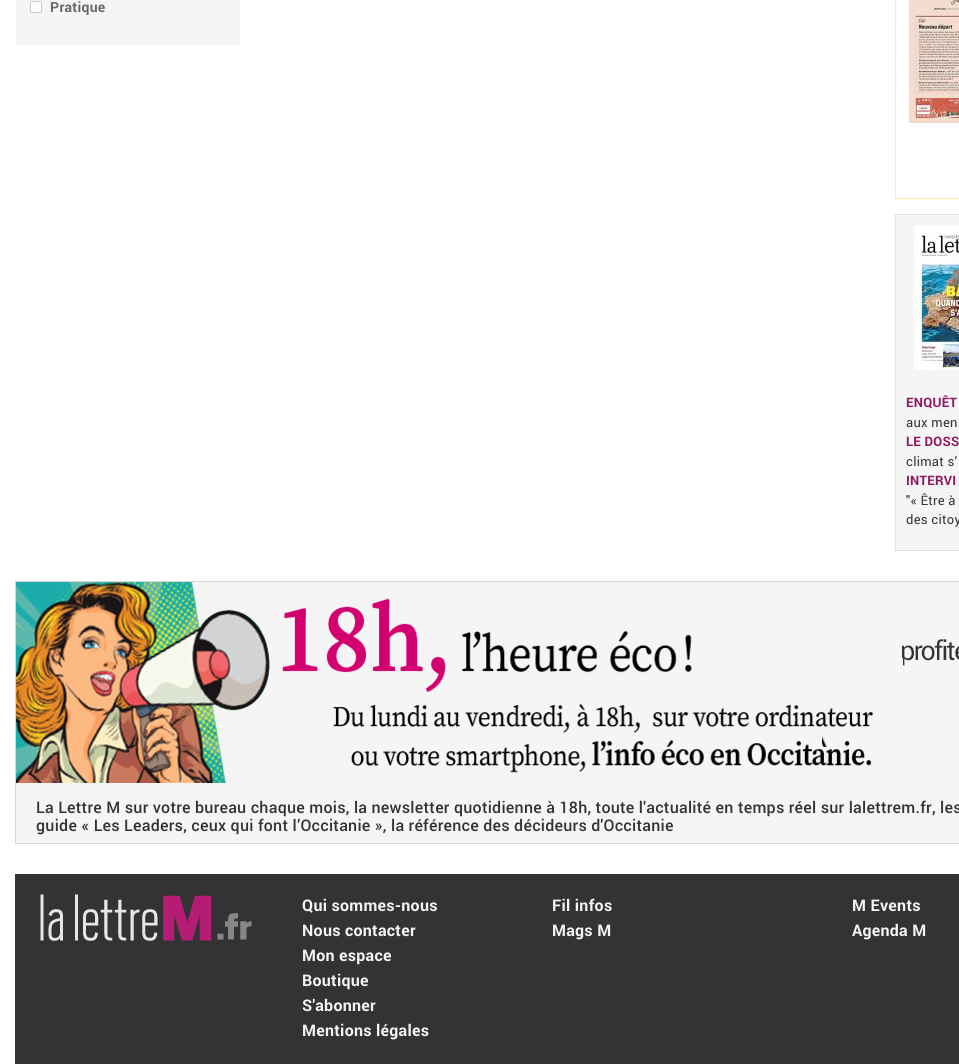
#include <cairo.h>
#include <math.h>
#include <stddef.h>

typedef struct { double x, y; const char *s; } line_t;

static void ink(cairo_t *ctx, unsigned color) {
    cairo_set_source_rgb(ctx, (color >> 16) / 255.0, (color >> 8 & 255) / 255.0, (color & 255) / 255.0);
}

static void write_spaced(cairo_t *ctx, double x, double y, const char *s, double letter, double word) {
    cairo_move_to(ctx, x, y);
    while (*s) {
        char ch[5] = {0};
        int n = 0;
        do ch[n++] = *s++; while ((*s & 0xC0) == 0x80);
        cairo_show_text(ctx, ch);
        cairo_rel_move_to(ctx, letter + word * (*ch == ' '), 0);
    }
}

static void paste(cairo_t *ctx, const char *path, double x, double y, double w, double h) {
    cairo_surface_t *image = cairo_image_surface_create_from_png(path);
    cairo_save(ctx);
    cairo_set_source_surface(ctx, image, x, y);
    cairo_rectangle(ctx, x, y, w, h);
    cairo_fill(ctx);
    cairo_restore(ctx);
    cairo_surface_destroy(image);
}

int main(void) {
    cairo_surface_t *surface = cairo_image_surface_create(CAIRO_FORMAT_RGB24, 959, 1064);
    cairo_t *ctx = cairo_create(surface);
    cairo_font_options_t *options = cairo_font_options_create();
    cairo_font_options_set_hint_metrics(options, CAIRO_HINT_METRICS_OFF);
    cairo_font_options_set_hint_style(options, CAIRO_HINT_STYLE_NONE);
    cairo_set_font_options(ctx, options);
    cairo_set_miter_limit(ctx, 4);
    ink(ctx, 0xFFFFFF);
    cairo_paint(ctx);
    ink(ctx, 0xF5F5F5);
    cairo_rectangle(ctx, 16, 0, 224, 45);
    cairo_fill(ctx);
    paste(ctx, "media/1.png", 30, 1, 12, 12);
    cairo_select_font_face(ctx, "Roboto", CAIRO_FONT_SLANT_NORMAL, CAIRO_FONT_WEIGHT_BOLD);
    cairo_set_font_size(ctx, 14);
    ink(ctx, 0x666769);
    write_spaced(ctx, 50, 12, "Pratique", 0.26, 0);
    ink(ctx, 0xFAECAB);
    cairo_rectangle(ctx, 895, 198, 64, 1);
    cairo_fill(ctx);
    cairo_rectangle(ctx, 895, 0, 1, 199);
    cairo_fill(ctx);
    paste(ctx, "media/2.png", 909, 0, 50, 123);
    ink(ctx, 0xF5F5F5);
    cairo_rectangle(ctx, 895.5, 214.5, 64, 336);
    cairo_fill_preserve(ctx);
    ink(ctx, 0xE2E2E2);
    cairo_set_line_width(ctx, 1);
    cairo_stroke(ctx);
    paste(ctx, "media/3.png", 914, 225, 45, 145);
    cairo_set_font_size(ctx, 13);
    ink(ctx, 0x901561);
    write_spaced(ctx, 906, 407, "ENQUÊT", 0.26, 0);
    cairo_select_font_face(ctx, "Roboto", CAIRO_FONT_SLANT_NORMAL, CAIRO_FONT_WEIGHT_NORMAL);
    ink(ctx, 0x333333);
    write_spaced(ctx, 906, 427, "aux men", 0.26, 0);
    cairo_select_font_face(ctx, "Roboto", CAIRO_FONT_SLANT_NORMAL, CAIRO_FONT_WEIGHT_BOLD);
    ink(ctx, 0x901561);
    write_spaced(ctx, 906, 446, "LE DOSS", 0.26, 0);
    cairo_select_font_face(ctx, "Roboto", CAIRO_FONT_SLANT_NORMAL, CAIRO_FONT_WEIGHT_NORMAL);
    ink(ctx, 0x333333);
    write_spaced(ctx, 906, 466, "climat s’", 0.26, 0);
    cairo_select_font_face(ctx, "Roboto", CAIRO_FONT_SLANT_NORMAL, CAIRO_FONT_WEIGHT_BOLD);
    ink(ctx, 0x901561);
    write_spaced(ctx, 906, 485, "INTERVI", 0.26, 0);
    cairo_select_font_face(ctx, "Roboto", CAIRO_FONT_SLANT_NORMAL, CAIRO_FONT_WEIGHT_NORMAL);
    ink(ctx, 0x333333);
    write_spaced(ctx, 906, 505, "\"« Être à", 0.26, 0);
    write_spaced(ctx, 906, 524, "des citoy", 0.26, 0);
    ink(ctx, 0xF5F5F5);
    cairo_rectangle(ctx, 16, 783, 943, 60);
    cairo_fill(ctx);
    cairo_rectangle(ctx, 15.5, 581.5, 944, 262);
    ink(ctx, 0xD6D6D6);
    cairo_stroke(ctx);
    paste(ctx, "media/4.png", 16, 582, 943, 201);
    cairo_select_font_face(ctx, "Roboto Medium", CAIRO_FONT_SLANT_NORMAL, CAIRO_FONT_WEIGHT_NORMAL);
    cairo_set_font_size(ctx, 16);
    ink(ctx, 0x333333);
    write_spaced(ctx, 36, 813, "La Lettre M sur votre bureau chaque mois, la newsletter quotidienne à 18h, toute l'actualité en temps réel sur lalettrem.fr, les", 0.26, 0);
    write_spaced(ctx, 36, 831, "guide « Les Leaders, ceux qui font l’Occitanie », la référence des décideurs d'Occitanie", 0.26, 0);
    cairo_rectangle(ctx, 15, 874, 944, 190);
    cairo_fill(ctx);
    paste(ctx, "media/5.png", 40, 894, 212, 47);
    cairo_select_font_face(ctx, "Roboto", CAIRO_FONT_SLANT_NORMAL, CAIRO_FONT_WEIGHT_BOLD);
    ink(ctx, 0xF4F4F4);
    {
        static const line_t items[] = {
            {302, 911, "Qui sommes-nous"},
            {302, 936, "Nous contacter"},
            {302, 961, "Mon espace"},
            {302, 986, "Boutique"},
            {302, 1011, "S'abonner"},
            {302, 1036, "Mentions légales"},
            {552, 911, "Fil infos"},
            {552, 936, "Mags M"},
            {852, 911, "M Events"},
            {852, 936, "Agenda M"},
        };
        for (size_t i = 0; i < sizeof items / sizeof *items; i++) {
            write_spaced(ctx, items[i].x, items[i].y, items[i].s, 0.26, 0);
        }
    }
    cairo_surface_write_to_png(surface, "image.png");
    cairo_font_options_destroy(options);
    cairo_destroy(ctx);
    cairo_surface_destroy(surface);
    return 0;
}
